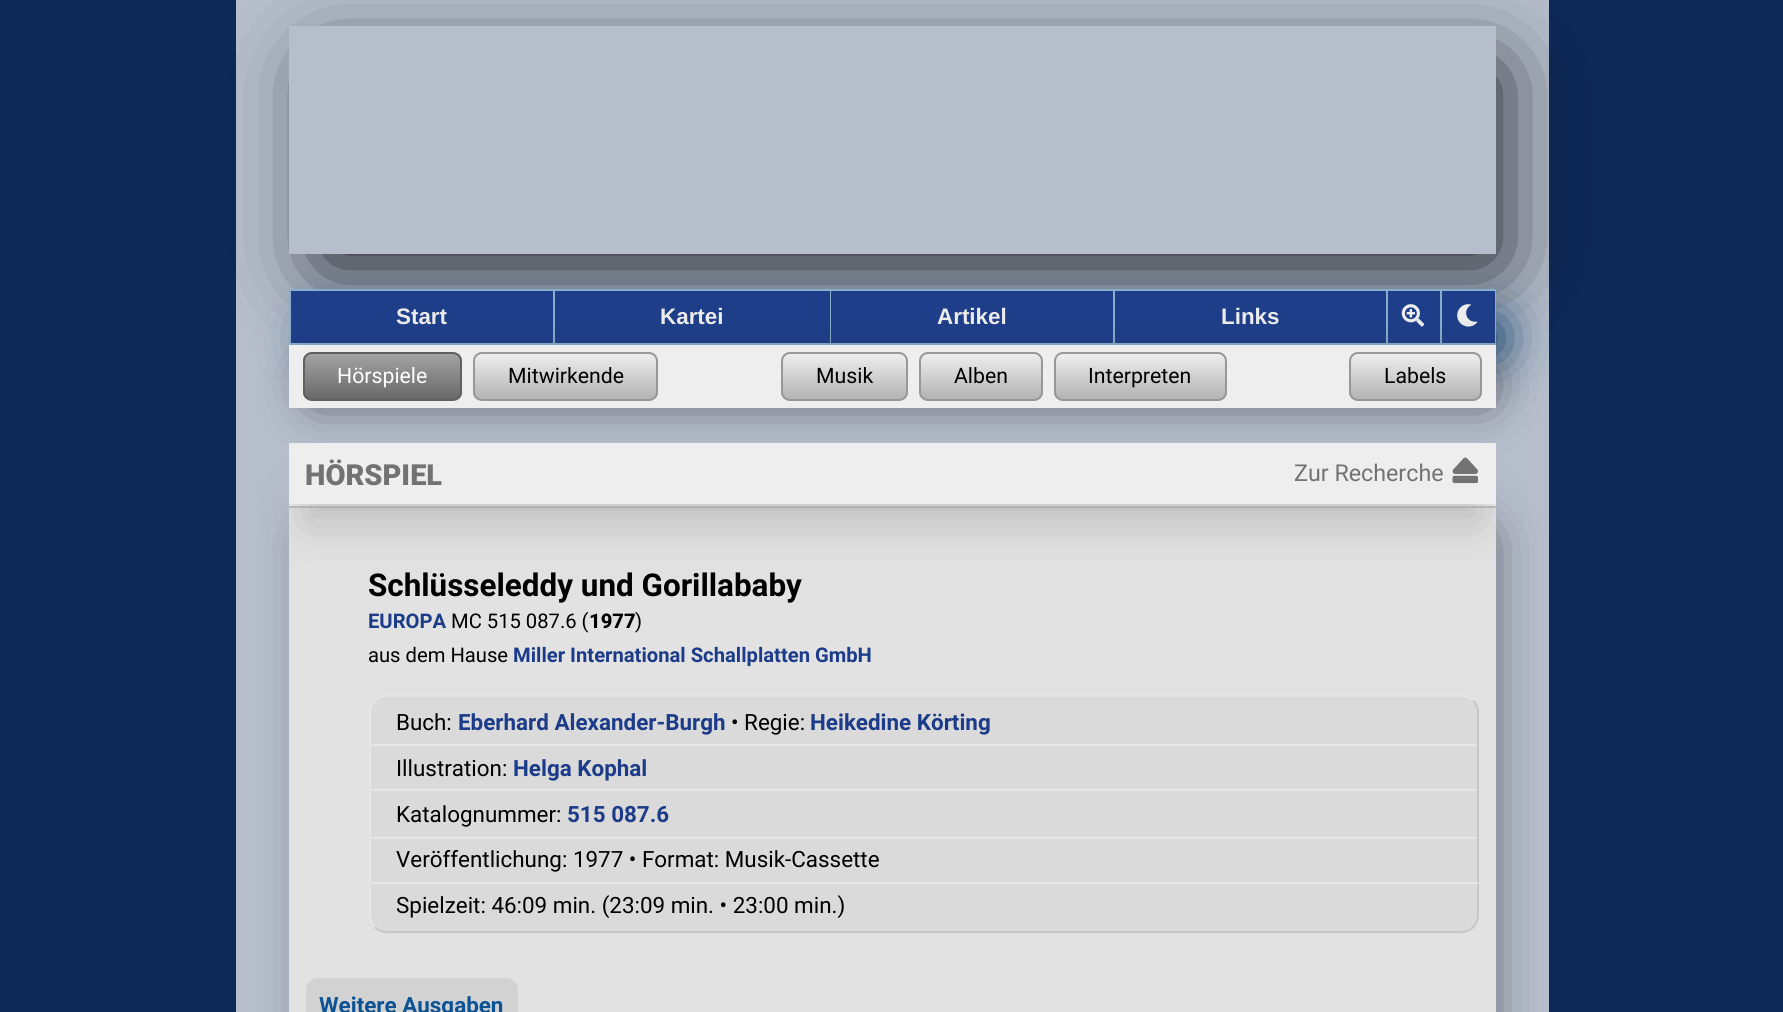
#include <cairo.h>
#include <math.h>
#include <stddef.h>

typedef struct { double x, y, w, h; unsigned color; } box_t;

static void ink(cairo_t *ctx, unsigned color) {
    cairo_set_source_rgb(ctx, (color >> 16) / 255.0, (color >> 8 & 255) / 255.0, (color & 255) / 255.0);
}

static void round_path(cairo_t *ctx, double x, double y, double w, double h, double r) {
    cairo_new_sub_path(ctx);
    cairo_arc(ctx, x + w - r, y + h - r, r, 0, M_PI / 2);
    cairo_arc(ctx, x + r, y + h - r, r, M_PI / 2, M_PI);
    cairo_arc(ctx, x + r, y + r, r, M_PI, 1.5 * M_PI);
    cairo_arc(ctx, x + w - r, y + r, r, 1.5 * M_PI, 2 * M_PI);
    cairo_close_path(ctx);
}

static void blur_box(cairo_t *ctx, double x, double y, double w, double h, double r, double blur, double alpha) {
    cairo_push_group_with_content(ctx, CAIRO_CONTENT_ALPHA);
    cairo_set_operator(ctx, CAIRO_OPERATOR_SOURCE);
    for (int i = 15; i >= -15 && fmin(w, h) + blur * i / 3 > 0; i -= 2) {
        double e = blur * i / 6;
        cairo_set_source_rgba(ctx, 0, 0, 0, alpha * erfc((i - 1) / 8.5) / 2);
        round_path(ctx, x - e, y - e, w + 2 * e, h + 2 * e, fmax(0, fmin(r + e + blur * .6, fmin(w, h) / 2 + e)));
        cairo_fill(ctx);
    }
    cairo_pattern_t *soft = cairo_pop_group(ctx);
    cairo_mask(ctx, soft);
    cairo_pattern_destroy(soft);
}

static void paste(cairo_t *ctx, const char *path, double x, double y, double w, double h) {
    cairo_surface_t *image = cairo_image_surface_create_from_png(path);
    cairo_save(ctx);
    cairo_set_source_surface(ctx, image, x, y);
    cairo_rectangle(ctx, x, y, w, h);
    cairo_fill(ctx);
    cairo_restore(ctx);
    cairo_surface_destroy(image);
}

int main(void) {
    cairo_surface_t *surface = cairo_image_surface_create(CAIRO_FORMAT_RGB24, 1783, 1012);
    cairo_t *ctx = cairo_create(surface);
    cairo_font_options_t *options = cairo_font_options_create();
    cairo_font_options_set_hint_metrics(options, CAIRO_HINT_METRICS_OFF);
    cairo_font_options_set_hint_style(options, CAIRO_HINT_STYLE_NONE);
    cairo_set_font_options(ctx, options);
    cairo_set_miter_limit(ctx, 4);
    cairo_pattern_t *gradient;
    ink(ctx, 0x0D2958);
    cairo_paint(ctx);
    ink(ctx, 0xB6BECC);
    cairo_rectangle(ctx, 236, 0, 1313, 1012);
    cairo_fill(ctx);
    cairo_save(ctx);
    cairo_set_fill_rule(ctx, CAIRO_FILL_RULE_EVEN_ODD);
    cairo_new_path(ctx);
    cairo_move_to(ctx, 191, 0);
    cairo_line_to(ctx, 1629, 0);
    cairo_line_to(ctx, 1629, 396);
    cairo_line_to(ctx, 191, 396);
    cairo_close_path(ctx);
    cairo_move_to(ctx, 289, 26);
    cairo_line_to(ctx, 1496, 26);
    cairo_line_to(ctx, 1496, 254);
    cairo_line_to(ctx, 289, 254);
    cairo_close_path(ctx);
    cairo_clip(ctx);
    ink(ctx, 0x0E1115);
    blur_box(ctx, 324, 70, 1172, 193, 0, 44, 1);
    cairo_restore(ctx);
    ink(ctx, 0x063969);
    blur_box(ctx, 319, 322, 1183, 32, 0, 26, 1);
    ink(ctx, 0x1E3E8A);
    cairo_rectangle(ctx, 291, 291, 1149, 52);
    cairo_fill(ctx);
    cairo_rectangle(ctx, 290, 290, 1205, 54);
    ink(ctx, 0x87AFCC);
    cairo_stroke(ctx);
    cairo_rectangle(ctx, 553, 291, 2, 52);
    cairo_fill(ctx);
    cairo_select_font_face(ctx, "Arimo", CAIRO_FONT_SLANT_NORMAL, CAIRO_FONT_WEIGHT_BOLD);
    cairo_set_font_size(ctx, 22.4);
    ink(ctx, 0xEEEEEE);
    cairo_move_to(ctx, 396, 324);
    cairo_show_text(ctx, "Start");
    ink(ctx, 0x87AFCC);
    cairo_rectangle(ctx, 830, 291, 1, 52);
    cairo_fill(ctx);
    ink(ctx, 0xEEEEEE);
    cairo_move_to(ctx, 660, 324);
    cairo_show_text(ctx, "Kartei");
    ink(ctx, 0x87AFCC);
    cairo_rectangle(ctx, 1113, 291, 2, 52);
    cairo_fill(ctx);
    ink(ctx, 0xEEEEEE);
    cairo_move_to(ctx, 937, 324);
    cairo_show_text(ctx, "Artikel");
    ink(ctx, 0x87AFCC);
    cairo_rectangle(ctx, 1386, 291, 2, 52);
    cairo_fill(ctx);
    ink(ctx, 0xEEEEEE);
    cairo_move_to(ctx, 1221, 324);
    cairo_show_text(ctx, "Links");
    ink(ctx, 0x87AFCC);
    cairo_rectangle(ctx, 1440, 291, 2, 52);
    cairo_fill(ctx);
    paste(ctx, "media/1.png", 1401, 304, 24, 23);
    ink(ctx, 0x1E3E8A);
    cairo_rectangle(ctx, 1442, 291, 53, 52);
    cairo_fill(ctx);
    paste(ctx, "media/2.png", 1457, 304, 21, 23);
    ink(ctx, 0x353535);
    blur_box(ctx, 320, 376, 1162, 18, 0, 26, 1);
    ink(ctx, 0xEEEEEE);
    cairo_rectangle(ctx, 289, 345, 1207, 63);
    cairo_fill(ctx);
    cairo_save(ctx);
    round_path(ctx, 303, 352, 159, 49, 9);
    cairo_clip(ctx);
    gradient = cairo_pattern_create_linear(382, 354, 382, 399);
    cairo_pattern_add_color_stop_rgba(gradient, 0, 0.639, 0.639, 0.639, 1);
    cairo_pattern_add_color_stop_rgba(gradient, 1, 0.412, 0.412, 0.412, 1);
    cairo_set_source(ctx, gradient);
    cairo_pattern_destroy(gradient);
    cairo_rectangle(ctx, 303, 354, 159, 45);
    cairo_fill(ctx);
    cairo_restore(ctx);
    round_path(ctx, 304, 353, 157, 47, 8);
    ink(ctx, 0x616161);
    cairo_stroke(ctx);
    cairo_select_font_face(ctx, "Roboto", CAIRO_FONT_SLANT_NORMAL, CAIRO_FONT_WEIGHT_NORMAL);
    cairo_set_font_size(ctx, 21.25);
    ink(ctx, 0xFFFFFF);
    cairo_move_to(ctx, 337, 383);
    cairo_show_text(ctx, "Hörspiele");
    cairo_save(ctx);
    round_path(ctx, 473, 352, 185, 49, 9);
    cairo_clip(ctx);
    gradient = cairo_pattern_create_linear(565, 354, 565, 399);
    cairo_pattern_add_color_stop_rgba(gradient, 0, 0.933, 0.933, 0.933, 1);
    cairo_pattern_add_color_stop_rgba(gradient, 1, 0.702, 0.702, 0.702, 1);
    cairo_set_source(ctx, gradient);
    cairo_pattern_destroy(gradient);
    cairo_rectangle(ctx, 473, 354, 185, 45);
    cairo_fill(ctx);
    cairo_restore(ctx);
    round_path(ctx, 474, 353, 183, 47, 8);
    ink(ctx, 0x989898);
    cairo_stroke(ctx);
    ink(ctx, 0x000000);
    cairo_move_to(ctx, 508, 383);
    cairo_show_text(ctx, "Mitwirkende");
    cairo_save(ctx);
    round_path(ctx, 781, 352, 127, 49, 9);
    cairo_clip(ctx);
    gradient = cairo_pattern_create_linear(844, 354, 844, 399);
    cairo_pattern_add_color_stop_rgba(gradient, 0, 0.933, 0.933, 0.933, 1);
    cairo_pattern_add_color_stop_rgba(gradient, 1, 0.702, 0.702, 0.702, 1);
    cairo_set_source(ctx, gradient);
    cairo_pattern_destroy(gradient);
    cairo_rectangle(ctx, 781, 354, 127, 45);
    cairo_fill(ctx);
    cairo_restore(ctx);
    round_path(ctx, 782, 353, 125, 47, 8);
    ink(ctx, 0x989898);
    cairo_stroke(ctx);
    ink(ctx, 0x000000);
    cairo_move_to(ctx, 816, 383);
    cairo_show_text(ctx, "Musik");
    cairo_save(ctx);
    round_path(ctx, 919, 352, 124, 49, 9);
    cairo_clip(ctx);
    gradient = cairo_pattern_create_linear(981, 354, 981, 399);
    cairo_pattern_add_color_stop_rgba(gradient, 0, 0.933, 0.933, 0.933, 1);
    cairo_pattern_add_color_stop_rgba(gradient, 1, 0.702, 0.702, 0.702, 1);
    cairo_set_source(ctx, gradient);
    cairo_pattern_destroy(gradient);
    cairo_rectangle(ctx, 919, 354, 124, 45);
    cairo_fill(ctx);
    cairo_restore(ctx);
    round_path(ctx, 920, 353, 122, 47, 8);
    ink(ctx, 0x989898);
    cairo_stroke(ctx);
    ink(ctx, 0x000000);
    cairo_move_to(ctx, 954, 383);
    cairo_show_text(ctx, "Alben");
    cairo_save(ctx);
    round_path(ctx, 1054, 352, 173, 49, 9);
    cairo_clip(ctx);
    gradient = cairo_pattern_create_linear(1140, 354, 1140, 399);
    cairo_pattern_add_color_stop_rgba(gradient, 0, 0.933, 0.933, 0.933, 1);
    cairo_pattern_add_color_stop_rgba(gradient, 1, 0.702, 0.702, 0.702, 1);
    cairo_set_source(ctx, gradient);
    cairo_pattern_destroy(gradient);
    cairo_rectangle(ctx, 1054, 354, 173, 45);
    cairo_fill(ctx);
    cairo_restore(ctx);
    round_path(ctx, 1055, 353, 171, 47, 8);
    ink(ctx, 0x989898);
    cairo_stroke(ctx);
    ink(ctx, 0x000000);
    cairo_move_to(ctx, 1088, 383);
    cairo_show_text(ctx, "Interpreten");
    cairo_save(ctx);
    round_path(ctx, 1349, 352, 133, 49, 9);
    cairo_clip(ctx);
    gradient = cairo_pattern_create_linear(1416, 354, 1416, 399);
    cairo_pattern_add_color_stop_rgba(gradient, 0, 0.933, 0.933, 0.933, 1);
    cairo_pattern_add_color_stop_rgba(gradient, 1, 0.702, 0.702, 0.702, 1);
    cairo_set_source(ctx, gradient);
    cairo_pattern_destroy(gradient);
    cairo_rectangle(ctx, 1349, 354, 133, 45);
    cairo_fill(ctx);
    cairo_restore(ctx);
    round_path(ctx, 1350, 353, 131, 47, 8);
    ink(ctx, 0x989898);
    cairo_stroke(ctx);
    ink(ctx, 0x000000);
    cairo_move_to(ctx, 1384, 383);
    cairo_show_text(ctx, "Labels");
    ink(ctx, 0x353535);
    blur_box(ctx, 320, 536, 1162, 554, 0, 26, 1);
    {
        static const box_t items[] = {
            {289, 504, 1207, 2, 0xEEEEEE},
            {289, 508, 1207, 504, 0xE2E2E2},
            {289, 506, 1207, 2, 0xB7B7B7},
        };
        for (size_t i = 0; i < sizeof items / sizeof *items; i++) {
            ink(ctx, items[i].color);
            cairo_rectangle(ctx, items[i].x, items[i].y, items[i].w, items[i].h);
            cairo_fill(ctx);
        }
    }
    ink(ctx, 0xB1B1B1);
    blur_box(ctx, 313, 502, 1159, 13, 0, 26, 1);
    ink(ctx, 0xEEEEEE);
    cairo_rectangle(ctx, 289, 443, 1207, 61);
    cairo_fill(ctx);
    cairo_select_font_face(ctx, "Roboto Black", CAIRO_FONT_SLANT_NORMAL, CAIRO_FONT_WEIGHT_NORMAL);
    cairo_set_font_size(ctx, 29);
    ink(ctx, 0x727272);
    cairo_move_to(ctx, 305, 485);
    cairo_show_text(ctx, "HÖRSPIEL");
    cairo_select_font_face(ctx, "Roboto", CAIRO_FONT_SLANT_NORMAL, CAIRO_FONT_WEIGHT_NORMAL);
    cairo_set_font_size(ctx, 23.25);
    cairo_move_to(ctx, 1294, 481);
    cairo_show_text(ctx, "Zur Recherche");
    paste(ctx, "media/3.png", 1452, 457, 26, 27);
    cairo_select_font_face(ctx, "Roboto", CAIRO_FONT_SLANT_NORMAL, CAIRO_FONT_WEIGHT_BOLD);
    cairo_set_font_size(ctx, 31.4);
    ink(ctx, 0x000000);
    cairo_move_to(ctx, 368, 596);
    cairo_show_text(ctx, "Schlüsseleddy und Gorillababy");
    cairo_set_font_size(ctx, 20.2);
    ink(ctx, 0x1C3C8A);
    cairo_move_to(ctx, 368, 628);
    cairo_show_text(ctx, "EUROPA");
    cairo_select_font_face(ctx, "Roboto", CAIRO_FONT_SLANT_NORMAL, CAIRO_FONT_WEIGHT_NORMAL);
    ink(ctx, 0x000000);
    cairo_move_to(ctx, 451, 628);
    cairo_show_text(ctx, "MC 515 087.6 (");
    cairo_select_font_face(ctx, "Roboto ExtraBold", CAIRO_FONT_SLANT_NORMAL, CAIRO_FONT_WEIGHT_NORMAL);
    cairo_move_to(ctx, 589, 628);
    cairo_show_text(ctx, "1977");
    cairo_select_font_face(ctx, "Roboto", CAIRO_FONT_SLANT_NORMAL, CAIRO_FONT_WEIGHT_NORMAL);
    cairo_move_to(ctx, 635, 628);
    cairo_show_text(ctx, ")");
    cairo_move_to(ctx, 368, 662);
    cairo_show_text(ctx, "aus dem Hause");
    cairo_select_font_face(ctx, "Roboto", CAIRO_FONT_SLANT_NORMAL, CAIRO_FONT_WEIGHT_BOLD);
    ink(ctx, 0x1C3C8A);
    cairo_move_to(ctx, 513, 662);
    cairo_show_text(ctx, "Miller International Schallplatten GmbH");
    ink(ctx, 0xDADADA);
    cairo_new_path(ctx);
    cairo_move_to(ctx, 387, 697);
    cairo_line_to(ctx, 1461, 697);
    cairo_curve_to(ctx, 1470, 697, 1477, 704, 1477, 713);
    cairo_line_to(ctx, 1477, 744);
    cairo_line_to(ctx, 371, 744);
    cairo_line_to(ctx, 371, 713);
    cairo_curve_to(ctx, 371, 704, 378, 697, 387, 697);
    cairo_close_path(ctx);
    cairo_fill(ctx);
    ink(ctx, 0xE6E6E6);
    cairo_new_path(ctx);
    cairo_move_to(ctx, 387, 695);
    cairo_line_to(ctx, 1461, 695);
    cairo_curve_to(ctx, 1466, 695, 1470, 697, 1474, 700);
    cairo_line_to(ctx, 1472, 701);
    cairo_curve_to(ctx, 1470, 698, 1466, 696, 1461, 696);
    cairo_line_to(ctx, 387, 696);
    cairo_curve_to(ctx, 382, 696, 378, 698, 376, 701);
    cairo_line_to(ctx, 374, 700);
    cairo_curve_to(ctx, 378, 697, 382, 695, 387, 695);
    cairo_close_path(ctx);
    cairo_fill(ctx);
    ink(ctx, 0xC7C7C7);
    cairo_new_path(ctx);
    cairo_move_to(ctx, 1474, 700);
    cairo_curve_to(ctx, 1476, 702, 1478, 706, 1479, 709);
    cairo_line_to(ctx, 1479, 744);
    cairo_line_to(ctx, 1477, 744);
    cairo_line_to(ctx, 1477, 712);
    cairo_curve_to(ctx, 1477, 708, 1475, 704, 1472, 701);
    cairo_close_path(ctx);
    cairo_fill(ctx);
    ink(ctx, 0xE6E6E6);
    cairo_new_path(ctx);
    cairo_move_to(ctx, 369, 744);
    cairo_line_to(ctx, 371, 744);
    cairo_line_to(ctx, 371, 712);
    cairo_curve_to(ctx, 371, 708, 373, 704, 376, 701);
    cairo_line_to(ctx, 374, 700);
    cairo_curve_to(ctx, 372, 702, 370, 706, 369, 709);
    cairo_close_path(ctx);
    cairo_fill(ctx);
    cairo_select_font_face(ctx, "Roboto", CAIRO_FONT_SLANT_NORMAL, CAIRO_FONT_WEIGHT_NORMAL);
    cairo_set_font_size(ctx, 22.4);
    ink(ctx, 0x000000);
    cairo_move_to(ctx, 396, 730);
    cairo_show_text(ctx, "Buch:");
    cairo_select_font_face(ctx, "Roboto", CAIRO_FONT_SLANT_NORMAL, CAIRO_FONT_WEIGHT_BOLD);
    ink(ctx, 0x1C3C8A);
    cairo_move_to(ctx, 458, 730);
    cairo_show_text(ctx, "Eberhard Alexander-Burgh");
    cairo_select_font_face(ctx, "Roboto", CAIRO_FONT_SLANT_NORMAL, CAIRO_FONT_WEIGHT_NORMAL);
    ink(ctx, 0x000000);
    cairo_move_to(ctx, 731, 730);
    cairo_show_text(ctx, "• Regie:");
    cairo_select_font_face(ctx, "Roboto", CAIRO_FONT_SLANT_NORMAL, CAIRO_FONT_WEIGHT_BOLD);
    ink(ctx, 0x1C3C8A);
    cairo_move_to(ctx, 810, 730);
    cairo_show_text(ctx, "Heikedine Körting");
    {
        static const box_t items[] = {
            {371, 746, 1106, 43, 0xDADADA},
            {369, 744, 1110, 2, 0xE6E6E6},
            {1477, 744, 2, 45, 0xC7C7C7},
            {369, 744, 2, 45, 0xE6E6E6},
        };
        for (size_t i = 0; i < sizeof items / sizeof *items; i++) {
            ink(ctx, items[i].color);
            cairo_rectangle(ctx, items[i].x, items[i].y, items[i].w, items[i].h);
            cairo_fill(ctx);
        }
    }
    cairo_select_font_face(ctx, "Roboto", CAIRO_FONT_SLANT_NORMAL, CAIRO_FONT_WEIGHT_NORMAL);
    ink(ctx, 0x000000);
    cairo_move_to(ctx, 396, 776);
    cairo_show_text(ctx, "Illustration:");
    cairo_select_font_face(ctx, "Roboto", CAIRO_FONT_SLANT_NORMAL, CAIRO_FONT_WEIGHT_BOLD);
    ink(ctx, 0x1C3C8A);
    cairo_move_to(ctx, 513, 776);
    cairo_show_text(ctx, "Helga Kophal");
    {
        static const box_t items[] = {
            {371, 791, 1106, 46, 0xDADADA},
            {369, 789, 1110, 2, 0xE6E6E6},
            {1477, 789, 2, 48, 0xC7C7C7},
            {369, 789, 2, 48, 0xE6E6E6},
        };
        for (size_t i = 0; i < sizeof items / sizeof *items; i++) {
            ink(ctx, items[i].color);
            cairo_rectangle(ctx, items[i].x, items[i].y, items[i].w, items[i].h);
            cairo_fill(ctx);
        }
    }
    cairo_select_font_face(ctx, "Roboto", CAIRO_FONT_SLANT_NORMAL, CAIRO_FONT_WEIGHT_NORMAL);
    ink(ctx, 0x000000);
    cairo_move_to(ctx, 396, 822);
    cairo_show_text(ctx, "Katalognummer:");
    cairo_select_font_face(ctx, "Roboto", CAIRO_FONT_SLANT_NORMAL, CAIRO_FONT_WEIGHT_BOLD);
    ink(ctx, 0x1C3C8A);
    cairo_move_to(ctx, 567, 822);
    cairo_show_text(ctx, "515 087.6");
    {
        static const box_t items[] = {
            {371, 839, 1106, 43, 0xDADADA},
            {369, 837, 1110, 2, 0xE6E6E6},
            {1477, 837, 2, 45, 0xC7C7C7},
            {369, 837, 2, 45, 0xE6E6E6},
        };
        for (size_t i = 0; i < sizeof items / sizeof *items; i++) {
            ink(ctx, items[i].color);
            cairo_rectangle(ctx, items[i].x, items[i].y, items[i].w, items[i].h);
            cairo_fill(ctx);
        }
    }
    cairo_select_font_face(ctx, "Roboto", CAIRO_FONT_SLANT_NORMAL, CAIRO_FONT_WEIGHT_NORMAL);
    ink(ctx, 0x000000);
    cairo_move_to(ctx, 396, 867);
    cairo_show_text(ctx, "Veröffentlichung: 1977 • Format: Musik-Cassette");
    ink(ctx, 0xDADADA);
    cairo_new_path(ctx);
    cairo_move_to(ctx, 369, 882);
    cairo_line_to(ctx, 1479, 882);
    cairo_line_to(ctx, 1479, 915);
    cairo_curve_to(ctx, 1479, 925, 1471, 933, 1461, 933);
    cairo_line_to(ctx, 387, 933);
    cairo_curve_to(ctx, 377, 933, 369, 925, 369, 915);
    cairo_close_path(ctx);
    cairo_fill(ctx);
    ink(ctx, 0xE6E6E6);
    cairo_new_path(ctx);
    cairo_move_to(ctx, 369, 882);
    cairo_line_to(ctx, 371, 884);
    cairo_line_to(ctx, 1477, 884);
    cairo_line_to(ctx, 1479, 882);
    cairo_close_path(ctx);
    cairo_fill(ctx);
    ink(ctx, 0xC7C7C7);
    cairo_new_path(ctx);
    cairo_move_to(ctx, 1479, 882);
    cairo_line_to(ctx, 1479, 918);
    cairo_curve_to(ctx, 1478, 922, 1476, 925, 1474, 928);
    cairo_line_to(ctx, 1472, 926);
    cairo_curve_to(ctx, 1475, 924, 1477, 920, 1477, 915);
    cairo_line_to(ctx, 1477, 884);
    cairo_close_path(ctx);
    cairo_fill(ctx);
    cairo_new_path(ctx);
    cairo_move_to(ctx, 384, 933);
    cairo_curve_to(ctx, 380, 932, 377, 930, 374, 928);
    cairo_line_to(ctx, 376, 926);
    cairo_curve_to(ctx, 378, 929, 382, 931, 387, 931);
    cairo_line_to(ctx, 1461, 931);
    cairo_curve_to(ctx, 1466, 931, 1470, 929, 1472, 926);
    cairo_line_to(ctx, 1474, 928);
    cairo_curve_to(ctx, 1471, 930, 1468, 932, 1464, 933);
    cairo_close_path(ctx);
    cairo_fill(ctx);
    ink(ctx, 0xE6E6E6);
    cairo_new_path(ctx);
    cairo_move_to(ctx, 371, 884);
    cairo_line_to(ctx, 371, 915);
    cairo_curve_to(ctx, 371, 920, 373, 924, 376, 926);
    cairo_line_to(ctx, 374, 928);
    cairo_curve_to(ctx, 372, 925, 370, 922, 369, 918);
    cairo_line_to(ctx, 369, 882);
    cairo_close_path(ctx);
    cairo_fill(ctx);
    ink(ctx, 0x000000);
    cairo_move_to(ctx, 396, 913);
    cairo_show_text(ctx, "Spielzeit: 46:09 min. (23:09 min. • 23:00 min.)");
    ink(ctx, 0xD2D2D2);
    round_path(ctx, 306, 978, 212, 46, 12);
    cairo_fill(ctx);
    cairo_select_font_face(ctx, "Roboto", CAIRO_FONT_SLANT_NORMAL, CAIRO_FONT_WEIGHT_BOLD);
    ink(ctx, 0x0B5394);
    cairo_move_to(ctx, 319, 1013);
    cairo_show_text(ctx, "Weitere Ausgaben");
    cairo_surface_write_to_png(surface, "image.png");
    cairo_font_options_destroy(options);
    cairo_destroy(ctx);
    cairo_surface_destroy(surface);
    return 0;
}
